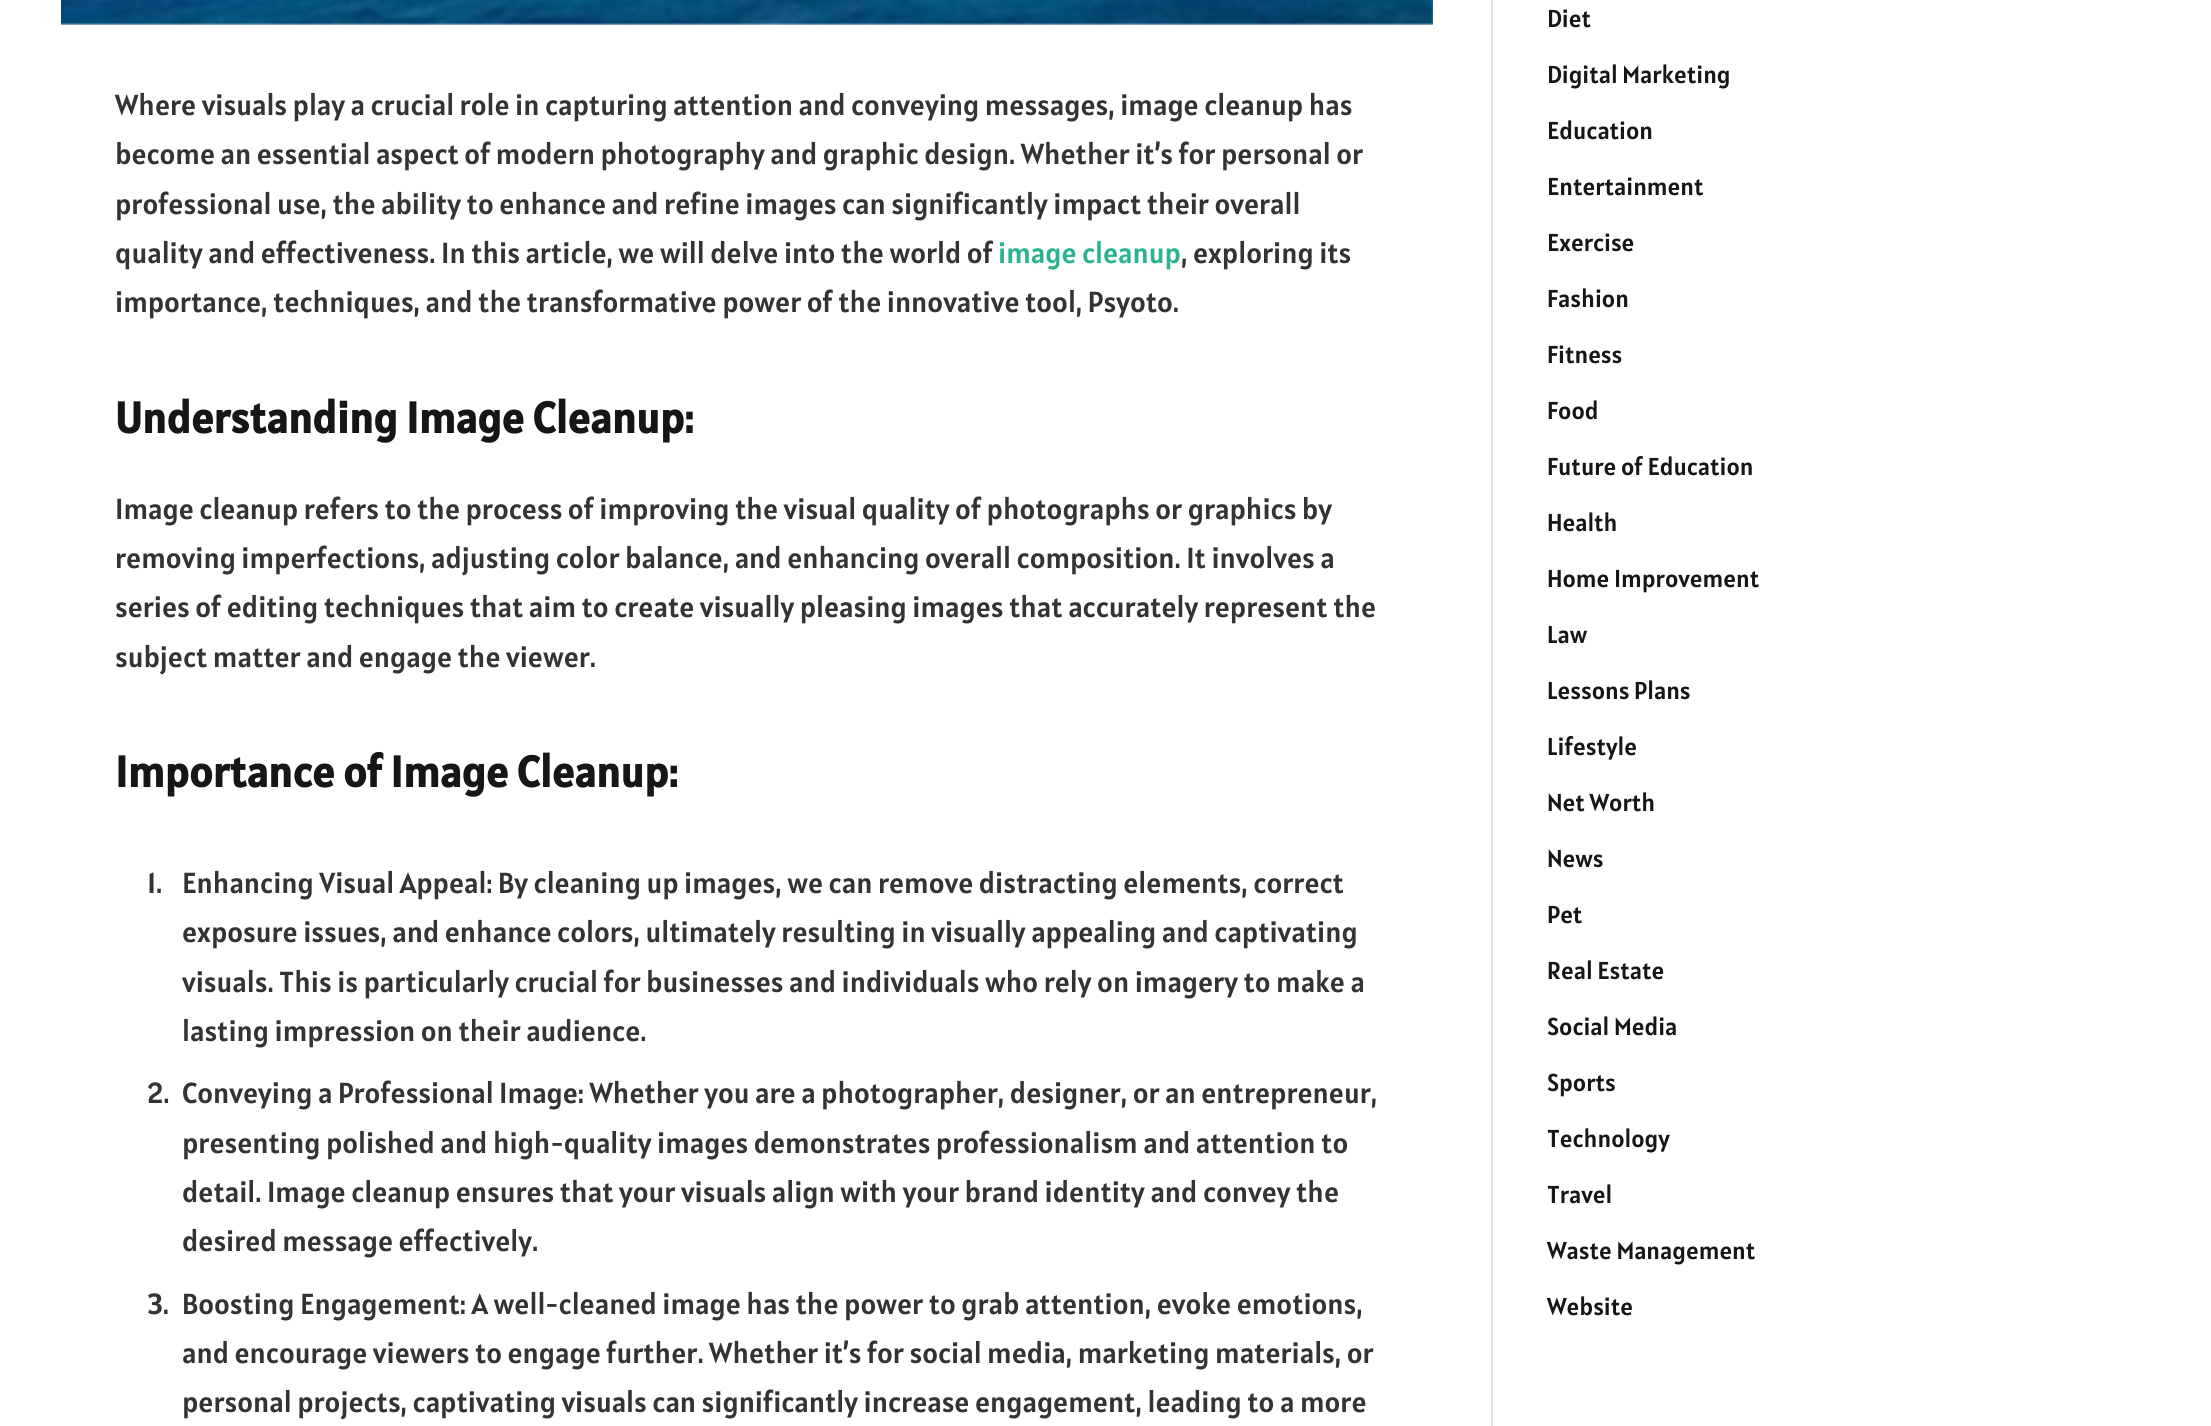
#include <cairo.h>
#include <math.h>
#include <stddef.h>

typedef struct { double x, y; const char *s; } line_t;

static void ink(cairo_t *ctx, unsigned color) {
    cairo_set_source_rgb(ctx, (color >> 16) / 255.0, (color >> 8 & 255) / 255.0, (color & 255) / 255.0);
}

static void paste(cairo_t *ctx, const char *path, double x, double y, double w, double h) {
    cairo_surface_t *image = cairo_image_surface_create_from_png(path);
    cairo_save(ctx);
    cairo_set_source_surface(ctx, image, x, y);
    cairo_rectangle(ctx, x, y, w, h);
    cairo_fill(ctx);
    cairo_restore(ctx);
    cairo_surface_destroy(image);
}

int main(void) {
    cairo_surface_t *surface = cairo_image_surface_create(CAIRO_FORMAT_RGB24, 2211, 1426);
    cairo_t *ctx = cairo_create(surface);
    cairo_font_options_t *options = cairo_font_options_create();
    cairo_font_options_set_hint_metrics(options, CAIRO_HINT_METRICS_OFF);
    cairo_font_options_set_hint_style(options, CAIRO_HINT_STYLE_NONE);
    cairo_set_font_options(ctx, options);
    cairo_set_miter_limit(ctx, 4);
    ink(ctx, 0xFFFFFF);
    cairo_paint(ctx);
    paste(ctx, "media/1.png", 61, 0, 1372, 25);
    cairo_select_font_face(ctx, "Alatsi", CAIRO_FONT_SLANT_NORMAL, CAIRO_FONT_WEIGHT_NORMAL);
    cairo_set_font_size(ctx, 29.05);
    ink(ctx, 0x333333);
    {
        static const line_t items[] = {
            {115, 115, "Where visuals play a crucial role in capturing attention and conveying messages, image cleanup has"},
            {115, 164, "become an essential aspect of modern photography and graphic design. Whether it’s for personal or"},
            {115, 214, "professional use, the ability to enhance and refine images can significantly impact their overall"},
            {115, 263, "quality and effectiveness. In this article, we will delve into the world of"},
        };
        for (size_t i = 0; i < sizeof items / sizeof *items; i++) {
            cairo_move_to(ctx, items[i].x, items[i].y);
            cairo_show_text(ctx, items[i].s);
        }
    }
    ink(ctx, 0x2AB391);
    cairo_move_to(ctx, 998, 263);
    cairo_show_text(ctx, "image cleanup");
    ink(ctx, 0x333333);
    cairo_move_to(ctx, 1181, 263);
    cairo_show_text(ctx, ", exploring its");
    cairo_move_to(ctx, 115, 312);
    cairo_show_text(ctx, "importance, techniques, and the transformative power of the innovative tool, Psyoto.");
    cairo_select_font_face(ctx, "Alatsi", CAIRO_FONT_SLANT_NORMAL, CAIRO_FONT_WEIGHT_BOLD);
    cairo_set_font_size(ctx, 43.6);
    ink(ctx, 0x161616);
    cairo_move_to(ctx, 115, 433);
    cairo_show_text(ctx, "Understanding Image Cleanup:");
    cairo_select_font_face(ctx, "Alatsi", CAIRO_FONT_SLANT_NORMAL, CAIRO_FONT_WEIGHT_NORMAL);
    cairo_set_font_size(ctx, 29.05);
    ink(ctx, 0x333333);
    {
        static const line_t items[] = {
            {115, 519, "Image cleanup refers to the process of improving the visual quality of photographs or graphics by"},
            {115, 568, "removing imperfections, adjusting color balance, and enhancing overall composition. It involves a"},
            {115, 617, "series of editing techniques that aim to create visually pleasing images that accurately represent the"},
            {115, 667, "subject matter and engage the viewer."},
        };
        for (size_t i = 0; i < sizeof items / sizeof *items; i++) {
            cairo_move_to(ctx, items[i].x, items[i].y);
            cairo_show_text(ctx, items[i].s);
        }
    }
    cairo_select_font_face(ctx, "Alatsi", CAIRO_FONT_SLANT_NORMAL, CAIRO_FONT_WEIGHT_BOLD);
    cairo_set_font_size(ctx, 43.6);
    ink(ctx, 0x161616);
    cairo_move_to(ctx, 115, 787);
    cairo_show_text(ctx, "Importance of Image Cleanup:");
    cairo_select_font_face(ctx, "Alatsi", CAIRO_FONT_SLANT_NORMAL, CAIRO_FONT_WEIGHT_NORMAL);
    cairo_set_font_size(ctx, 29.05);
    ink(ctx, 0x333333);
    {
        static const line_t items[] = {
            {147, 893, "1."},
            {182, 893, "Enhancing Visual Appeal: By cleaning up images, we can remove distracting elements, correct"},
            {182, 942, "exposure issues, and enhance colors, ultimately resulting in visually appealing and captivating"},
            {182, 992, "visuals. This is particularly crucial for businesses and individuals who rely on imagery to make a"},
            {182, 1041, "lasting impression on their audience."},
            {147, 1103, "2."},
            {182, 1103, "Conveying a Professional Image: Whether you are a photographer, designer, or an entrepreneur,"},
            {182, 1153, "presenting polished and high-quality images demonstrates professionalism and attention to"},
            {182, 1202, "detail. Image cleanup ensures that your visuals align with your brand identity and convey the"},
            {182, 1251, "desired message effectively."},
            {147, 1314, "3."},
            {182, 1314, "Boosting Engagement: A well-cleaned image has the power to grab attention, evoke emotions,"},
            {182, 1363, "and encourage viewers to engage further. Whether it’s for social media, marketing materials, or"},
            {182, 1412, "personal projects, captivating visuals can significantly increase engagement, leading to a more"},
        };
        for (size_t i = 0; i < sizeof items / sizeof *items; i++) {
            cairo_move_to(ctx, items[i].x, items[i].y);
            cairo_show_text(ctx, items[i].s);
        }
    }
    ink(ctx, 0xE2E2E2);
    cairo_rectangle(ctx, 1491, 0, 2, 1426);
    cairo_fill(ctx);
    cairo_set_font_size(ctx, 24.5);
    ink(ctx, 0x161616);
    {
        static const line_t items[] = {
            {1547, 27, "Diet"},
            {1547, 83, "Digital Marketing"},
            {1547, 139, "Education"},
            {1547, 195, "Entertainment"},
            {1547, 251, "Exercise"},
            {1547, 307, "Fashion"},
            {1547, 363, "Fitness"},
            {1547, 419, "Food"},
            {1547, 475, "Future of Education"},
            {1547, 531, "Health"},
            {1547, 587, "Home Improvement"},
            {1547, 643, "Law"},
            {1547, 699, "Lessons Plans"},
            {1547, 755, "Lifestyle"},
            {1547, 811, "Net Worth"},
            {1547, 867, "News"},
            {1547, 923, "Pet"},
            {1547, 979, "Real Estate"},
            {1547, 1035, "Social Media"},
            {1547, 1091, "Sports"},
            {1547, 1147, "Technology"},
            {1547, 1203, "Travel"},
            {1547, 1259, "Waste Management"},
            {1547, 1315, "Website"},
        };
        for (size_t i = 0; i < sizeof items / sizeof *items; i++) {
            cairo_move_to(ctx, items[i].x, items[i].y);
            cairo_show_text(ctx, items[i].s);
        }
    }
    cairo_surface_write_to_png(surface, "image.png");
    cairo_font_options_destroy(options);
    cairo_destroy(ctx);
    cairo_surface_destroy(surface);
    return 0;
}
